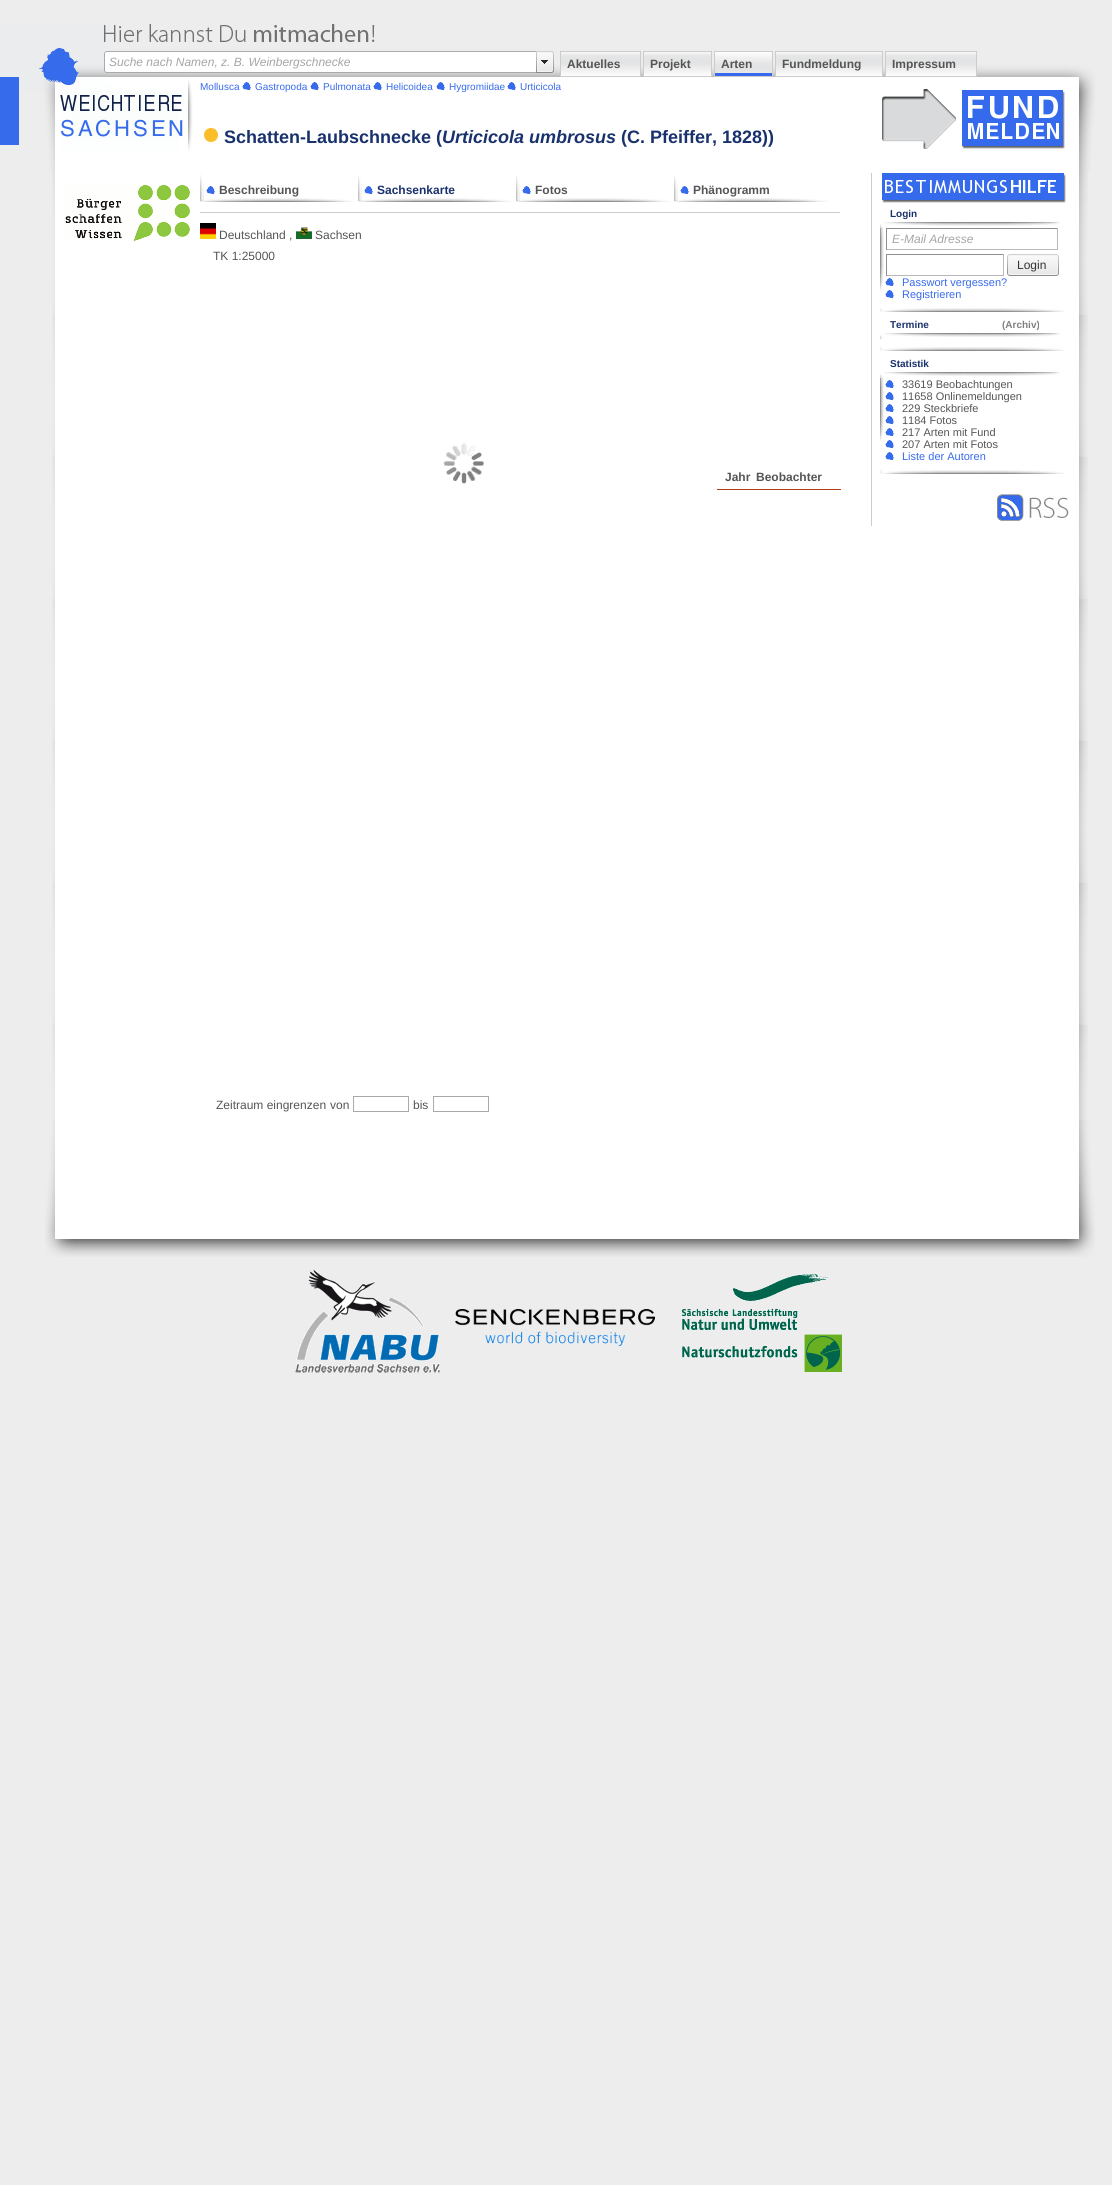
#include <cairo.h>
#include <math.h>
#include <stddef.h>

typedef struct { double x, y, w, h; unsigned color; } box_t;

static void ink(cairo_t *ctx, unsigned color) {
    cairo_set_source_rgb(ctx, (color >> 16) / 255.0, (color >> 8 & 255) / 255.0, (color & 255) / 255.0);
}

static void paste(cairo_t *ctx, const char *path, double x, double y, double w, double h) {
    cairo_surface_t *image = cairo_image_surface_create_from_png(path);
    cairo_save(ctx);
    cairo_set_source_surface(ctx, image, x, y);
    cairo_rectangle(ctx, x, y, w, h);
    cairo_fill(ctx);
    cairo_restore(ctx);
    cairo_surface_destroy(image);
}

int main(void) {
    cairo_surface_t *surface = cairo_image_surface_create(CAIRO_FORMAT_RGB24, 1112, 2185);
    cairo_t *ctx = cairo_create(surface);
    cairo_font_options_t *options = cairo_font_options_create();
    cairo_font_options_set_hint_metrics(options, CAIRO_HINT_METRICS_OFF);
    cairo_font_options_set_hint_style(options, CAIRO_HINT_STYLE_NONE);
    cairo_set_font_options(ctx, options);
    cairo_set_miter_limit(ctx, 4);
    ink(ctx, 0xEDEDEE);
    cairo_paint(ctx);
    paste(ctx, "media/1.png", 0, 24, 1095, 149);
    paste(ctx, "media/2.png", 104, 51, 432, 22);
    cairo_select_font_face(ctx, "Liberation Sans", CAIRO_FONT_SLANT_ITALIC, CAIRO_FONT_WEIGHT_NORMAL);
    cairo_set_font_size(ctx, 12);
    ink(ctx, 0xA5A5A5);
    cairo_move_to(ctx, 109, 66);
    cairo_show_text(ctx, "Suche nach Namen, z. B. Weinbergschnecke");
    paste(ctx, "media/3.png", 536, 51, 18, 22);
    paste(ctx, "media/4.png", 561, 52, 79, 24);
    cairo_rectangle(ctx, 560.5, 51.5, 80, 25);
    ink(ctx, 0xCCCCCC);
    cairo_set_line_width(ctx, 1);
    cairo_stroke(ctx);
    cairo_select_font_face(ctx, "Liberation Sans", CAIRO_FONT_SLANT_NORMAL, CAIRO_FONT_WEIGHT_BOLD);
    ink(ctx, 0x555555);
    cairo_move_to(ctx, 567, 68);
    cairo_show_text(ctx, "Aktuelles");
    paste(ctx, "media/5.png", 644, 52, 67, 24);
    cairo_rectangle(ctx, 643.5, 51.5, 68, 25);
    ink(ctx, 0xCCCCCC);
    cairo_stroke(ctx);
    ink(ctx, 0x555555);
    cairo_move_to(ctx, 650, 68);
    cairo_show_text(ctx, "Projekt");
    paste(ctx, "media/6.png", 715, 52, 57, 24);
    cairo_rectangle(ctx, 714.5, 51.5, 58, 25);
    ink(ctx, 0xCCCCCC);
    cairo_stroke(ctx);
    ink(ctx, 0x555555);
    cairo_move_to(ctx, 721, 68);
    cairo_show_text(ctx, "Arten");
    paste(ctx, "media/7.png", 776, 52, 106, 24);
    cairo_rectangle(ctx, 775.5, 51.5, 107, 25);
    ink(ctx, 0xCCCCCC);
    cairo_stroke(ctx);
    ink(ctx, 0x555555);
    cairo_move_to(ctx, 782, 68);
    cairo_show_text(ctx, "Fundmeldung");
    paste(ctx, "media/8.png", 886, 52, 90, 24);
    cairo_rectangle(ctx, 885.5, 51.5, 91, 25);
    ink(ctx, 0xCCCCCC);
    cairo_stroke(ctx);
    ink(ctx, 0x555555);
    cairo_move_to(ctx, 892, 68);
    cairo_show_text(ctx, "Impressum");
    cairo_select_font_face(ctx, "Liberation Sans", CAIRO_FONT_SLANT_NORMAL, CAIRO_FONT_WEIGHT_NORMAL);
    cairo_set_font_size(ctx, 10);
    ink(ctx, 0x366AEC);
    cairo_move_to(ctx, 200, 90);
    cairo_show_text(ctx, "Mollusca");
    paste(ctx, "media/9.png", 242, 82, 9, 8);
    cairo_move_to(ctx, 255, 90);
    cairo_show_text(ctx, "Gastropoda");
    paste(ctx, "media/9.png", 310, 82, 9, 8);
    cairo_move_to(ctx, 323, 90);
    cairo_show_text(ctx, "Pulmonata");
    paste(ctx, "media/9.png", 373, 82, 9, 8);
    cairo_move_to(ctx, 386, 90);
    cairo_show_text(ctx, "Helicoidea");
    paste(ctx, "media/9.png", 436, 82, 9, 8);
    cairo_move_to(ctx, 449, 90);
    cairo_show_text(ctx, "Hygromiidae");
    paste(ctx, "media/9.png", 507, 82, 9, 8);
    cairo_move_to(ctx, 520, 90);
    cairo_show_text(ctx, "Urticicola");
    paste(ctx, "media/10.png", 204, 128, 7, 14);
    paste(ctx, "media/11.png", 211, 128, 7, 14);
    cairo_select_font_face(ctx, "Liberation Sans", CAIRO_FONT_SLANT_NORMAL, CAIRO_FONT_WEIGHT_BOLD);
    cairo_set_font_size(ctx, 18);
    ink(ctx, 0x19316D);
    cairo_move_to(ctx, 224, 143);
    cairo_show_text(ctx, "Schatten-Laubschnecke (");
    cairo_select_font_face(ctx, "Liberation Sans", CAIRO_FONT_SLANT_ITALIC, CAIRO_FONT_WEIGHT_BOLD);
    cairo_move_to(ctx, 442, 143);
    cairo_show_text(ctx, "Urticicola umbrosus");
    cairo_select_font_face(ctx, "Liberation Sans", CAIRO_FONT_SLANT_NORMAL, CAIRO_FONT_WEIGHT_BOLD);
    cairo_move_to(ctx, 621, 143);
    cairo_show_text(ctx, "(C. Pfeiffer, 1828))");
    paste(ctx, "media/12.png", 882, 89, 74, 60);
    paste(ctx, "media/13.png", 962, 90, 103, 59);
    paste(ctx, "media/15.png", 52, 173, 1036, 947);
    paste(ctx, "media/14.png", 65, 185, 125, 56);
    ink(ctx, 0xCCCCCC);
    cairo_rectangle(ctx, 200, 212, 640, 1);
    cairo_fill(ctx);
    paste(ctx, "media/16.png", 200, 174, 154, 28);
    paste(ctx, "media/9.png", 206, 186, 9, 8);
    cairo_set_font_size(ctx, 12);
    ink(ctx, 0x555555);
    cairo_move_to(ctx, 219, 194);
    cairo_show_text(ctx, "Beschreibung");
    paste(ctx, "media/16.png", 358, 174, 154, 28);
    paste(ctx, "media/9.png", 364, 186, 9, 8);
    ink(ctx, 0x19316D);
    cairo_move_to(ctx, 377, 194);
    cairo_show_text(ctx, "Sachsenkarte");
    paste(ctx, "media/16.png", 516, 174, 154, 28);
    paste(ctx, "media/9.png", 522, 186, 9, 8);
    ink(ctx, 0x555555);
    cairo_move_to(ctx, 535, 194);
    cairo_show_text(ctx, "Fotos");
    paste(ctx, "media/16.png", 674, 174, 154, 28);
    paste(ctx, "media/9.png", 680, 186, 9, 8);
    cairo_move_to(ctx, 693, 194);
    cairo_show_text(ctx, "Phänogramm");
    paste(ctx, "media/17.png", 200, 223, 16, 16);
    cairo_select_font_face(ctx, "Liberation Sans", CAIRO_FONT_SLANT_NORMAL, CAIRO_FONT_WEIGHT_NORMAL);
    cairo_move_to(ctx, 219, 239);
    cairo_show_text(ctx, "Deutschland ,");
    paste(ctx, "media/18.png", 296, 227, 16, 12);
    cairo_move_to(ctx, 315, 239);
    cairo_show_text(ctx, "Sachsen");
    cairo_move_to(ctx, 213, 260);
    cairo_show_text(ctx, "TK 1:25000");
    paste(ctx, "media/19.png", 443, 443, 41, 41);
    ink(ctx, 0xB23A16);
    cairo_rectangle(ctx, 717, 489, 124, 1);
    cairo_fill(ctx);
    cairo_select_font_face(ctx, "Liberation Sans", CAIRO_FONT_SLANT_NORMAL, CAIRO_FONT_WEIGHT_BOLD);
    ink(ctx, 0x555555);
    cairo_move_to(ctx, 725, 481);
    cairo_show_text(ctx, "Jahr");
    cairo_move_to(ctx, 756, 481);
    cairo_show_text(ctx, "Beobachter");
    cairo_select_font_face(ctx, "Liberation Sans", CAIRO_FONT_SLANT_NORMAL, CAIRO_FONT_WEIGHT_NORMAL);
    cairo_move_to(ctx, 216, 1109);
    cairo_show_text(ctx, "Zeitraum eingrenzen");
    cairo_move_to(ctx, 330, 1109);
    cairo_show_text(ctx, "von");
    cairo_rectangle(ctx, 353.5, 1096.5, 55, 15);
    ink(ctx, 0xAAAAAA);
    cairo_stroke(ctx);
    ink(ctx, 0x555555);
    cairo_move_to(ctx, 413, 1109);
    cairo_show_text(ctx, "bis");
    cairo_rectangle(ctx, 433.5, 1096.5, 55, 15);
    ink(ctx, 0xAAAAAA);
    cairo_stroke(ctx);
    ink(ctx, 0xCCCCCC);
    cairo_rectangle(ctx, 871, 173, 1, 353);
    cairo_fill(ctx);
    paste(ctx, "media/20.png", 882, 173, 184, 30);
    cairo_select_font_face(ctx, "Liberation Sans", CAIRO_FONT_SLANT_NORMAL, CAIRO_FONT_WEIGHT_BOLD);
    cairo_set_font_size(ctx, 10);
    ink(ctx, 0x19316D);
    cairo_move_to(ctx, 890, 217);
    cairo_show_text(ctx, "Login");
    paste(ctx, "media/21.png", 880, 222, 181, 6);
    paste(ctx, "media/22.png", 880, 228, 4, 63);
    {
        static const box_t items[] = {
            {886, 228, 172, 1, 0x8E8E8E},
            {1057, 228, 1, 22, 0xB8B8B8},
            {886, 249, 172, 1, 0xB8B8B8},
            {886, 228, 1, 22, 0x8E8E8E},
        };
        for (size_t i = 0; i < sizeof items / sizeof *items; i++) {
            ink(ctx, items[i].color);
            cairo_rectangle(ctx, items[i].x, items[i].y, items[i].w, items[i].h);
            cairo_fill(ctx);
        }
    }
    cairo_select_font_face(ctx, "Liberation Sans", CAIRO_FONT_SLANT_ITALIC, CAIRO_FONT_WEIGHT_NORMAL);
    cairo_set_font_size(ctx, 12);
    ink(ctx, 0xA5A5A5);
    cairo_move_to(ctx, 892, 243);
    cairo_show_text(ctx, "E-Mail Adresse");
    {
        static const box_t items[] = {
            {886, 254, 118, 1, 0x8E8E8E},
            {1003, 254, 1, 22, 0xB8B8B8},
            {886, 275, 118, 1, 0xB8B8B8},
            {886, 254, 1, 22, 0x8E8E8E},
        };
        for (size_t i = 0; i < sizeof items / sizeof *items; i++) {
            ink(ctx, items[i].color);
            cairo_rectangle(ctx, items[i].x, items[i].y, items[i].w, items[i].h);
            cairo_fill(ctx);
        }
    }
    paste(ctx, "media/23.png", 1007, 254, 2, 22);
    paste(ctx, "media/24.png", 1009, 254, 50, 22);
    cairo_select_font_face(ctx, "Liberation Sans", CAIRO_FONT_SLANT_NORMAL, CAIRO_FONT_WEIGHT_NORMAL);
    ink(ctx, 0x333333);
    cairo_move_to(ctx, 1017, 269);
    cairo_show_text(ctx, "Login");
    paste(ctx, "media/9.png", 885, 278, 9, 8);
    cairo_set_font_size(ctx, 11);
    ink(ctx, 0x366AEC);
    cairo_move_to(ctx, 902, 286);
    cairo_show_text(ctx, "Passwort vergessen?");
    paste(ctx, "media/9.png", 885, 290, 9, 8);
    cairo_move_to(ctx, 902, 298);
    cairo_show_text(ctx, "Registrieren");
    paste(ctx, "media/25.png", 880, 307, 184, 5);
    cairo_select_font_face(ctx, "Liberation Sans", CAIRO_FONT_SLANT_NORMAL, CAIRO_FONT_WEIGHT_BOLD);
    cairo_set_font_size(ctx, 10);
    ink(ctx, 0x19316D);
    cairo_move_to(ctx, 890, 328);
    cairo_show_text(ctx, "Termine");
    ink(ctx, 0x808080);
    cairo_move_to(ctx, 1002, 328);
    cairo_show_text(ctx, "(Archiv)");
    paste(ctx, "media/21.png", 880, 333, 181, 6);
    paste(ctx, "media/25.png", 880, 346, 184, 5);
    ink(ctx, 0x19316D);
    cairo_move_to(ctx, 890, 367);
    cairo_show_text(ctx, "Statistik");
    paste(ctx, "media/21.png", 880, 372, 181, 6);
    paste(ctx, "media/22.png", 880, 378, 4, 63);
    paste(ctx, "media/9.png", 885, 380, 9, 8);
    cairo_select_font_face(ctx, "Liberation Sans", CAIRO_FONT_SLANT_NORMAL, CAIRO_FONT_WEIGHT_NORMAL);
    cairo_set_font_size(ctx, 11);
    ink(ctx, 0x555555);
    cairo_move_to(ctx, 902, 388);
    cairo_show_text(ctx, "33619 Beobachtungen");
    paste(ctx, "media/9.png", 885, 392, 9, 8);
    cairo_move_to(ctx, 902, 400);
    cairo_show_text(ctx, "11658 Onlinemeldungen");
    paste(ctx, "media/9.png", 885, 404, 9, 8);
    cairo_move_to(ctx, 902, 412);
    cairo_show_text(ctx, "229 Steckbriefe");
    paste(ctx, "media/9.png", 885, 416, 9, 8);
    cairo_move_to(ctx, 902, 424);
    cairo_show_text(ctx, "1184 Fotos");
    paste(ctx, "media/9.png", 885, 428, 9, 8);
    cairo_move_to(ctx, 902, 436);
    cairo_show_text(ctx, "217 Arten mit Fund");
    paste(ctx, "media/9.png", 885, 440, 9, 8);
    cairo_move_to(ctx, 902, 448);
    cairo_show_text(ctx, "207 Arten mit Fotos");
    paste(ctx, "media/9.png", 885, 452, 9, 8);
    ink(ctx, 0x366AEC);
    cairo_move_to(ctx, 902, 460);
    cairo_show_text(ctx, "Liste der Autoren");
    paste(ctx, "media/25.png", 880, 469, 184, 5);
    paste(ctx, "media/26.png", 997, 494, 72, 27);
    paste(ctx, "media/27.png", 45, 1120, 1050, 137);
    paste(ctx, "media/28.png", 295, 1270, 145, 103);
    paste(ctx, "media/29.png", 455, 1309, 200, 37);
    paste(ctx, "media/30.png", 682, 1274, 160, 98);
    cairo_surface_write_to_png(surface, "image.png");
    cairo_font_options_destroy(options);
    cairo_destroy(ctx);
    cairo_surface_destroy(surface);
    return 0;
}
